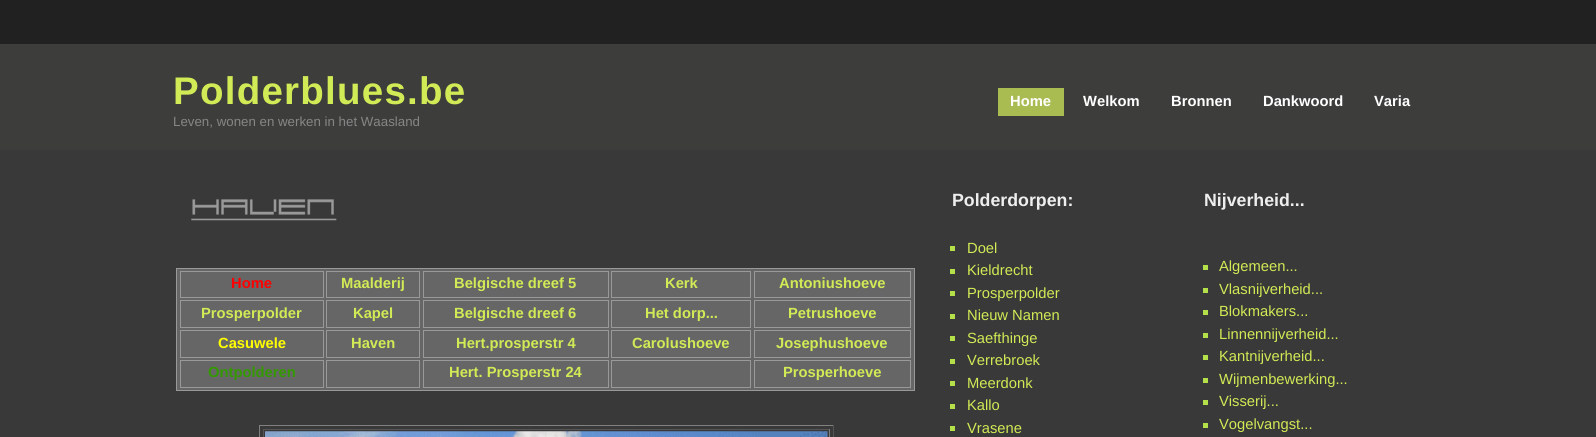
#include <cairo.h>
#include <math.h>
#include <stddef.h>

typedef struct { double x, y; const char *s; } line_t;
typedef struct { double x, y, w, h; unsigned color; } box_t;

static void ink(cairo_t *ctx, unsigned color) {
    cairo_set_source_rgb(ctx, (color >> 16) / 255.0, (color >> 8 & 255) / 255.0, (color & 255) / 255.0);
}

static void write_spaced(cairo_t *ctx, double x, double y, const char *s, double letter, double word) {
    cairo_move_to(ctx, x, y);
    while (*s) {
        char ch[5] = {0};
        int n = 0;
        do ch[n++] = *s++; while ((*s & 0xC0) == 0x80);
        cairo_show_text(ctx, ch);
        cairo_rel_move_to(ctx, letter + word * (*ch == ' '), 0);
    }
}

static void paste(cairo_t *ctx, const char *path, double x, double y, double w, double h) {
    cairo_surface_t *image = cairo_image_surface_create_from_png(path);
    cairo_save(ctx);
    cairo_set_source_surface(ctx, image, x, y);
    cairo_rectangle(ctx, x, y, w, h);
    cairo_fill(ctx);
    cairo_restore(ctx);
    cairo_surface_destroy(image);
}

int main(void) {
    cairo_surface_t *surface = cairo_image_surface_create(CAIRO_FORMAT_RGB24, 1596, 437);
    cairo_t *ctx = cairo_create(surface);
    cairo_font_options_t *options = cairo_font_options_create();
    cairo_font_options_set_hint_metrics(options, CAIRO_HINT_METRICS_OFF);
    cairo_font_options_set_hint_style(options, CAIRO_HINT_STYLE_NONE);
    cairo_set_font_options(ctx, options);
    cairo_set_miter_limit(ctx, 4);
    ink(ctx, 0x393939);
    cairo_paint(ctx);
    ink(ctx, 0x212121);
    cairo_rectangle(ctx, 0, 0, 1596, 44);
    cairo_fill(ctx);
    ink(ctx, 0x3D3D3B);
    cairo_rectangle(ctx, 0, 44, 1596, 106);
    cairo_fill(ctx);
    cairo_select_font_face(ctx, "Liberation Sans", CAIRO_FONT_SLANT_NORMAL, CAIRO_FONT_WEIGHT_BOLD);
    cairo_set_font_size(ctx, 38.5);
    ink(ctx, 0xD0EB55);
    write_spaced(ctx, 173, 104, "Polderblues.be", 1.25, 0);
    ink(ctx, 0xA9BC52);
    cairo_rectangle(ctx, 998, 88, 66, 28);
    cairo_fill(ctx);
    cairo_set_font_size(ctx, 14.75);
    ink(ctx, 0xFFFFFF);
    {
        static const line_t items[] = {
            {1010, 106, "Home"},
            {1083, 106, "Welkom"},
            {1171, 106, "Bronnen"},
            {1263, 106, "Dankwoord"},
            {1374, 106, "Varia"},
        };
        for (size_t i = 0; i < sizeof items / sizeof *items; i++) {
            cairo_move_to(ctx, items[i].x, items[i].y);
            cairo_show_text(ctx, items[i].s);
        }
    }
    cairo_select_font_face(ctx, "Liberation Sans", CAIRO_FONT_SLANT_NORMAL, CAIRO_FONT_WEIGHT_NORMAL);
    cairo_set_font_size(ctx, 13.3);
    ink(ctx, 0x868686);
    cairo_move_to(ctx, 173, 126);
    cairo_show_text(ctx, "Leven, wonen en werken in het Waasland");
    paste(ctx, "media/1.png", 191, 199, 146, 22);
    cairo_select_font_face(ctx, "Liberation Sans", CAIRO_FONT_SLANT_NORMAL, CAIRO_FONT_WEIGHT_BOLD);
    cairo_set_font_size(ctx, 17.75);
    ink(ctx, 0xEEEEEE);
    cairo_move_to(ctx, 952, 206);
    cairo_show_text(ctx, "Polderdorpen:");
    ink(ctx, 0xB4E04A);
    cairo_rectangle(ctx, 950, 246, 5, 5);
    cairo_fill(ctx);
    cairo_select_font_face(ctx, "Liberation Sans", CAIRO_FONT_SLANT_NORMAL, CAIRO_FONT_WEIGHT_NORMAL);
    cairo_set_font_size(ctx, 14.75);
    ink(ctx, 0xD0EB55);
    cairo_move_to(ctx, 967, 253);
    cairo_show_text(ctx, "Doel");
    ink(ctx, 0xB4E04A);
    cairo_rectangle(ctx, 950, 269, 5, 5);
    cairo_fill(ctx);
    ink(ctx, 0xD0EB55);
    cairo_move_to(ctx, 967, 275);
    cairo_show_text(ctx, "Kieldrecht");
    ink(ctx, 0xB4E04A);
    cairo_rectangle(ctx, 950, 291, 5, 5);
    cairo_fill(ctx);
    ink(ctx, 0xD0EB55);
    cairo_move_to(ctx, 967, 298);
    cairo_show_text(ctx, "Prosperpolder");
    ink(ctx, 0xB4E04A);
    cairo_rectangle(ctx, 950, 314, 5, 5);
    cairo_fill(ctx);
    ink(ctx, 0xD0EB55);
    cairo_move_to(ctx, 967, 320);
    cairo_show_text(ctx, "Nieuw Namen");
    ink(ctx, 0xB4E04A);
    cairo_rectangle(ctx, 950, 336, 5, 5);
    cairo_fill(ctx);
    ink(ctx, 0xD0EB55);
    cairo_move_to(ctx, 967, 343);
    cairo_show_text(ctx, "Saefthinge");
    ink(ctx, 0xB4E04A);
    cairo_rectangle(ctx, 950, 359, 5, 5);
    cairo_fill(ctx);
    ink(ctx, 0xD0EB55);
    cairo_move_to(ctx, 967, 365);
    cairo_show_text(ctx, "Verrebroek");
    ink(ctx, 0xB4E04A);
    cairo_rectangle(ctx, 950, 381, 5, 5);
    cairo_fill(ctx);
    ink(ctx, 0xD0EB55);
    cairo_move_to(ctx, 967, 388);
    cairo_show_text(ctx, "Meerdonk");
    ink(ctx, 0xB4E04A);
    cairo_rectangle(ctx, 950, 404, 5, 5);
    cairo_fill(ctx);
    ink(ctx, 0xD0EB55);
    cairo_move_to(ctx, 967, 410);
    cairo_show_text(ctx, "Kallo");
    ink(ctx, 0xB4E04A);
    cairo_rectangle(ctx, 950, 426, 5, 5);
    cairo_fill(ctx);
    ink(ctx, 0xD0EB55);
    cairo_move_to(ctx, 967, 433);
    cairo_show_text(ctx, "Vrasene");
    cairo_select_font_face(ctx, "Liberation Sans", CAIRO_FONT_SLANT_NORMAL, CAIRO_FONT_WEIGHT_BOLD);
    cairo_set_font_size(ctx, 17.75);
    ink(ctx, 0xEEEEEE);
    cairo_move_to(ctx, 1204, 206);
    cairo_show_text(ctx, "Nijverheid...");
    ink(ctx, 0xB4E04A);
    cairo_rectangle(ctx, 1203, 265, 5, 5);
    cairo_fill(ctx);
    cairo_select_font_face(ctx, "Liberation Sans", CAIRO_FONT_SLANT_NORMAL, CAIRO_FONT_WEIGHT_NORMAL);
    cairo_set_font_size(ctx, 14.75);
    ink(ctx, 0xD0EB55);
    cairo_move_to(ctx, 1219, 271);
    cairo_show_text(ctx, "Algemeen...");
    ink(ctx, 0xB4E04A);
    cairo_rectangle(ctx, 1203, 288, 5, 5);
    cairo_fill(ctx);
    ink(ctx, 0xD0EB55);
    cairo_move_to(ctx, 1219, 294);
    cairo_show_text(ctx, "Vlasnijverheid...");
    ink(ctx, 0xB4E04A);
    cairo_rectangle(ctx, 1203, 310, 5, 5);
    cairo_fill(ctx);
    ink(ctx, 0xD0EB55);
    cairo_move_to(ctx, 1219, 316);
    cairo_show_text(ctx, "Blokmakers...");
    ink(ctx, 0xB4E04A);
    cairo_rectangle(ctx, 1203, 333, 5, 5);
    cairo_fill(ctx);
    ink(ctx, 0xD0EB55);
    cairo_move_to(ctx, 1219, 339);
    cairo_show_text(ctx, "Linnennijverheid...");
    ink(ctx, 0xB4E04A);
    cairo_rectangle(ctx, 1203, 355, 5, 5);
    cairo_fill(ctx);
    ink(ctx, 0xD0EB55);
    cairo_move_to(ctx, 1219, 361);
    cairo_show_text(ctx, "Kantnijverheid...");
    ink(ctx, 0xB4E04A);
    cairo_rectangle(ctx, 1203, 378, 5, 5);
    cairo_fill(ctx);
    ink(ctx, 0xD0EB55);
    cairo_move_to(ctx, 1219, 384);
    cairo_show_text(ctx, "Wijmenbewerking...");
    ink(ctx, 0xB4E04A);
    cairo_rectangle(ctx, 1203, 400, 5, 5);
    cairo_fill(ctx);
    ink(ctx, 0xD0EB55);
    cairo_move_to(ctx, 1219, 406);
    cairo_show_text(ctx, "Visserij...");
    ink(ctx, 0xB4E04A);
    cairo_rectangle(ctx, 1203, 423, 5, 5);
    cairo_fill(ctx);
    ink(ctx, 0xD0EB55);
    cairo_move_to(ctx, 1219, 429);
    cairo_show_text(ctx, "Vogelvangst...");
    ink(ctx, 0x666666);
    cairo_rectangle(ctx, 176.5, 268.5, 738, 122);
    cairo_fill_preserve(ctx);
    ink(ctx, 0x999999);
    cairo_set_line_width(ctx, 1);
    cairo_stroke(ctx);
    cairo_rectangle(ctx, 180.5, 271.5, 143, 26);
    cairo_stroke(ctx);
    cairo_select_font_face(ctx, "Liberation Sans", CAIRO_FONT_SLANT_NORMAL, CAIRO_FONT_WEIGHT_BOLD);
    ink(ctx, 0xFF0000);
    cairo_move_to(ctx, 231, 288);
    cairo_show_text(ctx, "Home");
    cairo_rectangle(ctx, 326.5, 271.5, 93, 26);
    ink(ctx, 0x999999);
    cairo_stroke(ctx);
    ink(ctx, 0xD0EB55);
    cairo_move_to(ctx, 341, 288);
    cairo_show_text(ctx, "Maalderij");
    cairo_rectangle(ctx, 423.5, 271.5, 185, 26);
    ink(ctx, 0x999999);
    cairo_stroke(ctx);
    ink(ctx, 0xD0EB55);
    cairo_move_to(ctx, 454, 288);
    cairo_show_text(ctx, "Belgische dreef 5");
    cairo_rectangle(ctx, 611.5, 271.5, 139, 26);
    ink(ctx, 0x999999);
    cairo_stroke(ctx);
    ink(ctx, 0xD0EB55);
    cairo_move_to(ctx, 665, 288);
    cairo_show_text(ctx, "Kerk");
    cairo_rectangle(ctx, 754.5, 271.5, 156, 26);
    ink(ctx, 0x999999);
    cairo_stroke(ctx);
    ink(ctx, 0xD0EB55);
    cairo_move_to(ctx, 779, 288);
    cairo_show_text(ctx, "Antoniushoeve");
    cairo_rectangle(ctx, 180.5, 300.5, 143, 27);
    ink(ctx, 0x999999);
    cairo_stroke(ctx);
    ink(ctx, 0xD0EB55);
    cairo_move_to(ctx, 201, 318);
    cairo_show_text(ctx, "Prosperpolder");
    cairo_rectangle(ctx, 326.5, 300.5, 93, 27);
    ink(ctx, 0x999999);
    cairo_stroke(ctx);
    ink(ctx, 0xD0EB55);
    cairo_move_to(ctx, 353, 318);
    cairo_show_text(ctx, "Kapel");
    cairo_rectangle(ctx, 423.5, 300.5, 185, 27);
    ink(ctx, 0x999999);
    cairo_stroke(ctx);
    ink(ctx, 0xD0EB55);
    cairo_move_to(ctx, 454, 318);
    cairo_show_text(ctx, "Belgische dreef 6");
    cairo_rectangle(ctx, 611.5, 300.5, 139, 27);
    ink(ctx, 0x999999);
    cairo_stroke(ctx);
    ink(ctx, 0xD0EB55);
    cairo_move_to(ctx, 645, 318);
    cairo_show_text(ctx, "Het dorp...");
    cairo_rectangle(ctx, 754.5, 300.5, 156, 27);
    ink(ctx, 0x999999);
    cairo_stroke(ctx);
    ink(ctx, 0xD0EB55);
    cairo_move_to(ctx, 788, 318);
    cairo_show_text(ctx, "Petrushoeve");
    cairo_rectangle(ctx, 180.5, 330.5, 143, 27);
    ink(ctx, 0x999999);
    cairo_stroke(ctx);
    ink(ctx, 0xFFFF00);
    cairo_move_to(ctx, 218, 348);
    cairo_show_text(ctx, "Casuwele");
    cairo_rectangle(ctx, 326.5, 330.5, 93, 27);
    ink(ctx, 0x999999);
    cairo_stroke(ctx);
    ink(ctx, 0xD0EB55);
    cairo_move_to(ctx, 351, 348);
    cairo_show_text(ctx, "Haven");
    cairo_rectangle(ctx, 423.5, 330.5, 185, 27);
    ink(ctx, 0x999999);
    cairo_stroke(ctx);
    ink(ctx, 0xD0EB55);
    cairo_move_to(ctx, 456, 348);
    cairo_show_text(ctx, "Hert.prosperstr 4");
    cairo_rectangle(ctx, 611.5, 330.5, 139, 27);
    ink(ctx, 0x999999);
    cairo_stroke(ctx);
    ink(ctx, 0xD0EB55);
    cairo_move_to(ctx, 632, 348);
    cairo_show_text(ctx, "Carolushoeve");
    cairo_rectangle(ctx, 754.5, 330.5, 156, 27);
    ink(ctx, 0x999999);
    cairo_stroke(ctx);
    ink(ctx, 0xD0EB55);
    cairo_move_to(ctx, 776, 348);
    cairo_show_text(ctx, "Josephushoeve");
    cairo_rectangle(ctx, 180.5, 360.5, 143, 27);
    ink(ctx, 0x999999);
    cairo_stroke(ctx);
    ink(ctx, 0x339900);
    cairo_move_to(ctx, 208, 377);
    cairo_show_text(ctx, "Ontpolderen");
    cairo_rectangle(ctx, 326.5, 360.5, 93, 27);
    ink(ctx, 0x999999);
    cairo_stroke(ctx);
    cairo_rectangle(ctx, 423.5, 360.5, 185, 27);
    cairo_stroke(ctx);
    ink(ctx, 0xD0EB55);
    cairo_move_to(ctx, 449, 377);
    cairo_show_text(ctx, "Hert. Prosperstr 24");
    cairo_rectangle(ctx, 611.5, 360.5, 139, 27);
    ink(ctx, 0x999999);
    cairo_stroke(ctx);
    cairo_rectangle(ctx, 754.5, 360.5, 156, 27);
    cairo_stroke(ctx);
    ink(ctx, 0xD0EB55);
    cairo_move_to(ctx, 783, 377);
    cairo_show_text(ctx, "Prosperhoeve");
    {
        static const box_t items[] = {
            {259, 425, 575, 1, 0x808080},
            {833, 425, 1, 12, 0x555555},
            {259, 425, 1, 12, 0x808080},
            {263, 429, 567, 1, 0x555555},
            {829, 429, 1, 8, 0x808080},
            {263, 429, 1, 8, 0x555555},
        };
        for (size_t i = 0; i < sizeof items / sizeof *items; i++) {
            ink(ctx, items[i].color);
            cairo_rectangle(ctx, items[i].x, items[i].y, items[i].w, items[i].h);
            cairo_fill(ctx);
        }
    }
    paste(ctx, "media/2.png", 265, 431, 563, 6);
    cairo_surface_write_to_png(surface, "image.png");
    cairo_font_options_destroy(options);
    cairo_destroy(ctx);
    cairo_surface_destroy(surface);
    return 0;
}
